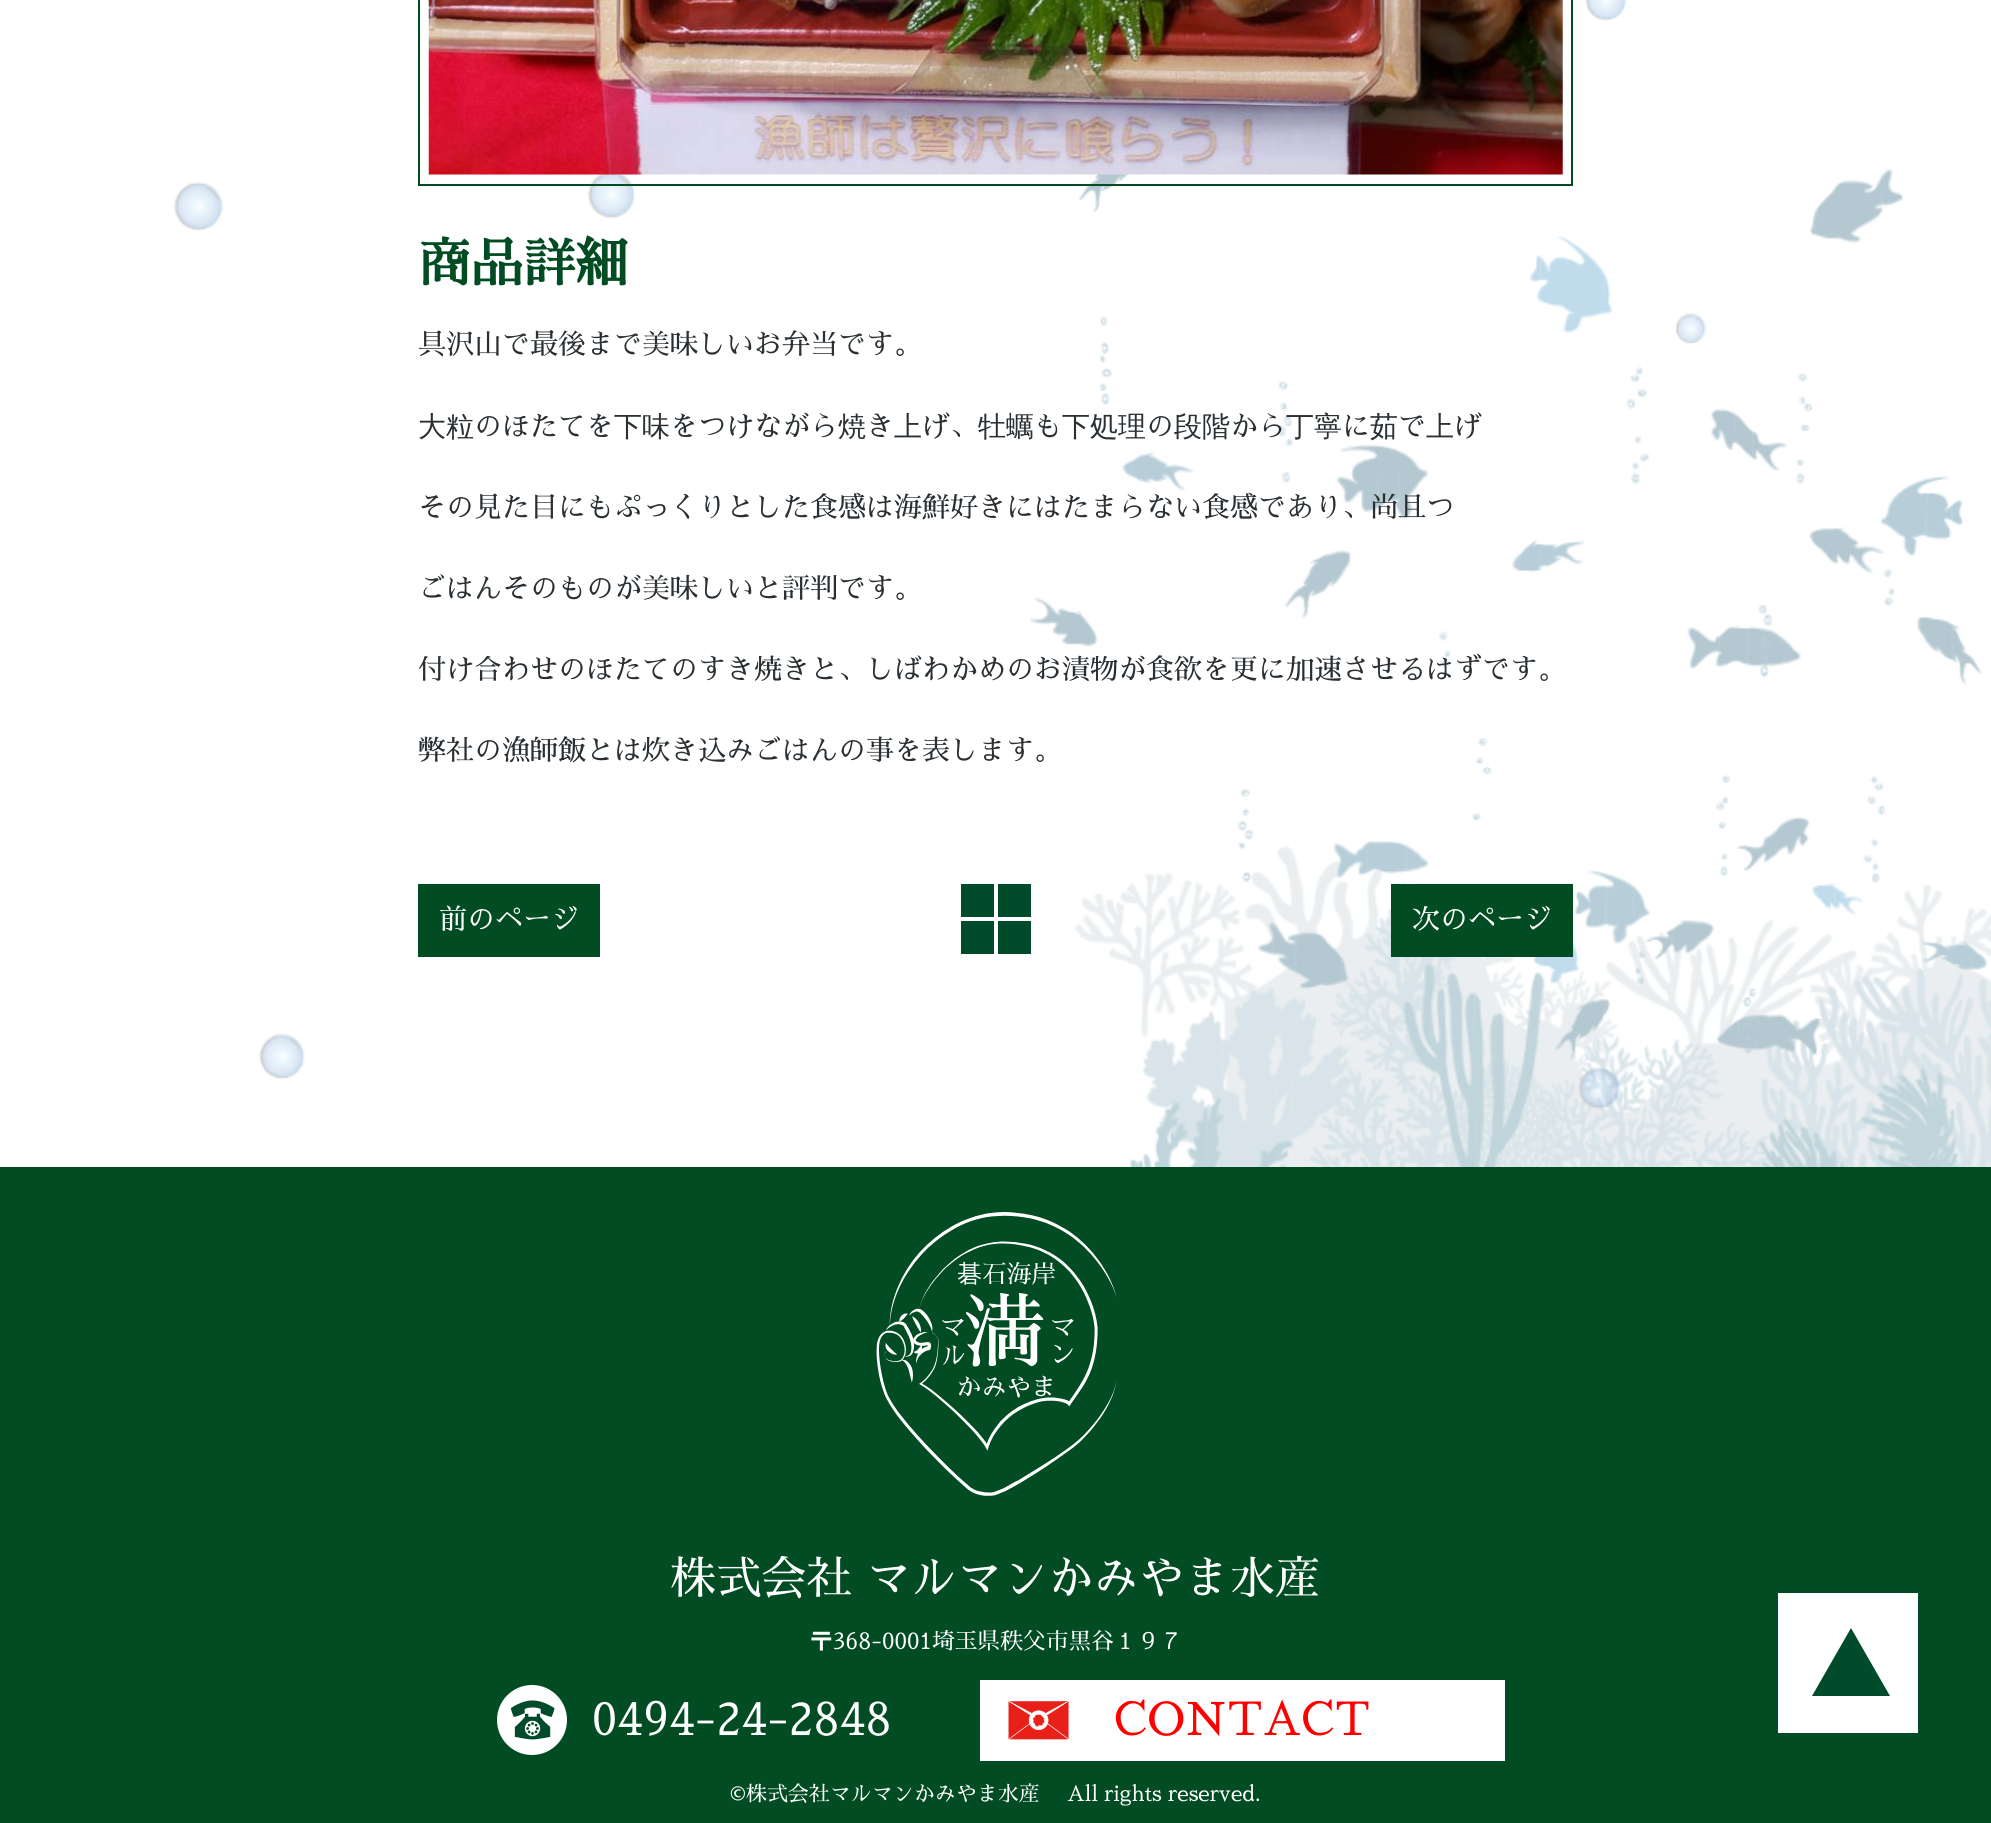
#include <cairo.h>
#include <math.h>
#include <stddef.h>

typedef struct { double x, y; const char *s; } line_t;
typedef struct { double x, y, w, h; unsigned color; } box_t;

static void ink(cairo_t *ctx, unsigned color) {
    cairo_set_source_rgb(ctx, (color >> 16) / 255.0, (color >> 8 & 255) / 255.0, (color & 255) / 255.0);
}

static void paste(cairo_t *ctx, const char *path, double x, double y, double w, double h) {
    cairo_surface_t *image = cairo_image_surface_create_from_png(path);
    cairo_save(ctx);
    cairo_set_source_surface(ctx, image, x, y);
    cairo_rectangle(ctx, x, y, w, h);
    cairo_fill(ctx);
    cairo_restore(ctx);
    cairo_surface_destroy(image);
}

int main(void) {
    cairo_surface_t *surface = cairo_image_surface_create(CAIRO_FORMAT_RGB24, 1991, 1823);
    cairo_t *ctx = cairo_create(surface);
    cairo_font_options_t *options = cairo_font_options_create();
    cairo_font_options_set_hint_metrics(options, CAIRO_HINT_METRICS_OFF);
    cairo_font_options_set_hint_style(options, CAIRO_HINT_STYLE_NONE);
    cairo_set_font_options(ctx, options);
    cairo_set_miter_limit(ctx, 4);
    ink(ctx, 0xFFFFFF);
    cairo_paint(ctx);
    paste(ctx, "media/1.png", 124, 0, 1867, 1167);
    cairo_rectangle(ctx, 419, -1, 1153, 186);
    ink(ctx, 0x014C23);
    cairo_stroke(ctx);
    paste(ctx, "media/2.png", 428, 0, 1135, 175);
    cairo_select_font_face(ctx, "Sawarabi Mincho", CAIRO_FONT_SLANT_NORMAL, CAIRO_FONT_WEIGHT_BOLD);
    cairo_set_font_size(ctx, 52.5);
    cairo_move_to(ctx, 418, 282);
    cairo_show_text(ctx, "商品詳細");
    cairo_select_font_face(ctx, "Sawarabi Mincho", CAIRO_FONT_SLANT_NORMAL, CAIRO_FONT_WEIGHT_NORMAL);
    cairo_set_font_size(ctx, 28);
    ink(ctx, 0x292F33);
    cairo_move_to(ctx, 418, 354);
    cairo_show_text(ctx, "具沢山で最後まで美味しいお弁当です。");
    cairo_select_font_face(ctx, "WenQuanYi Zen Hei Medium", CAIRO_FONT_SLANT_NORMAL, CAIRO_FONT_WEIGHT_NORMAL);
    cairo_move_to(ctx, 418, 436);
    cairo_show_text(ctx, "大粒");
    cairo_select_font_face(ctx, "Sawarabi Mincho", CAIRO_FONT_SLANT_NORMAL, CAIRO_FONT_WEIGHT_NORMAL);
    cairo_move_to(ctx, 474, 436);
    cairo_show_text(ctx, "のほたてを");
    cairo_select_font_face(ctx, "WenQuanYi Zen Hei Medium", CAIRO_FONT_SLANT_NORMAL, CAIRO_FONT_WEIGHT_NORMAL);
    cairo_move_to(ctx, 614, 436);
    cairo_show_text(ctx, "下味");
    cairo_select_font_face(ctx, "Sawarabi Mincho", CAIRO_FONT_SLANT_NORMAL, CAIRO_FONT_WEIGHT_NORMAL);
    cairo_move_to(ctx, 670, 436);
    cairo_show_text(ctx, "をつけながら");
    cairo_select_font_face(ctx, "WenQuanYi Zen Hei Medium", CAIRO_FONT_SLANT_NORMAL, CAIRO_FONT_WEIGHT_NORMAL);
    cairo_move_to(ctx, 838, 436);
    cairo_show_text(ctx, "焼");
    cairo_select_font_face(ctx, "Sawarabi Mincho", CAIRO_FONT_SLANT_NORMAL, CAIRO_FONT_WEIGHT_NORMAL);
    cairo_move_to(ctx, 866, 436);
    cairo_show_text(ctx, "き");
    cairo_select_font_face(ctx, "WenQuanYi Zen Hei Medium", CAIRO_FONT_SLANT_NORMAL, CAIRO_FONT_WEIGHT_NORMAL);
    cairo_move_to(ctx, 894, 436);
    cairo_show_text(ctx, "上");
    cairo_select_font_face(ctx, "Sawarabi Mincho", CAIRO_FONT_SLANT_NORMAL, CAIRO_FONT_WEIGHT_NORMAL);
    cairo_move_to(ctx, 922, 436);
    cairo_show_text(ctx, "げ、");
    cairo_select_font_face(ctx, "WenQuanYi Zen Hei Medium", CAIRO_FONT_SLANT_NORMAL, CAIRO_FONT_WEIGHT_NORMAL);
    cairo_move_to(ctx, 978, 436);
    cairo_show_text(ctx, "牡蠣");
    cairo_select_font_face(ctx, "Sawarabi Mincho", CAIRO_FONT_SLANT_NORMAL, CAIRO_FONT_WEIGHT_NORMAL);
    cairo_move_to(ctx, 1034, 436);
    cairo_show_text(ctx, "も");
    cairo_select_font_face(ctx, "WenQuanYi Zen Hei Medium", CAIRO_FONT_SLANT_NORMAL, CAIRO_FONT_WEIGHT_NORMAL);
    cairo_move_to(ctx, 1062, 436);
    cairo_show_text(ctx, "下処理");
    cairo_select_font_face(ctx, "Sawarabi Mincho", CAIRO_FONT_SLANT_NORMAL, CAIRO_FONT_WEIGHT_NORMAL);
    cairo_move_to(ctx, 1146, 436);
    cairo_show_text(ctx, "の");
    cairo_select_font_face(ctx, "WenQuanYi Zen Hei Medium", CAIRO_FONT_SLANT_NORMAL, CAIRO_FONT_WEIGHT_NORMAL);
    cairo_move_to(ctx, 1174, 436);
    cairo_show_text(ctx, "段階");
    cairo_select_font_face(ctx, "Sawarabi Mincho", CAIRO_FONT_SLANT_NORMAL, CAIRO_FONT_WEIGHT_NORMAL);
    cairo_move_to(ctx, 1230, 436);
    cairo_show_text(ctx, "から");
    cairo_select_font_face(ctx, "WenQuanYi Zen Hei Medium", CAIRO_FONT_SLANT_NORMAL, CAIRO_FONT_WEIGHT_NORMAL);
    cairo_move_to(ctx, 1286, 436);
    cairo_show_text(ctx, "丁寧");
    cairo_select_font_face(ctx, "Sawarabi Mincho", CAIRO_FONT_SLANT_NORMAL, CAIRO_FONT_WEIGHT_NORMAL);
    cairo_move_to(ctx, 1342, 436);
    cairo_show_text(ctx, "に");
    cairo_select_font_face(ctx, "WenQuanYi Zen Hei Medium", CAIRO_FONT_SLANT_NORMAL, CAIRO_FONT_WEIGHT_NORMAL);
    cairo_move_to(ctx, 1370, 436);
    cairo_show_text(ctx, "茹");
    cairo_select_font_face(ctx, "Sawarabi Mincho", CAIRO_FONT_SLANT_NORMAL, CAIRO_FONT_WEIGHT_NORMAL);
    cairo_move_to(ctx, 1398, 436);
    cairo_show_text(ctx, "で");
    cairo_select_font_face(ctx, "WenQuanYi Zen Hei Medium", CAIRO_FONT_SLANT_NORMAL, CAIRO_FONT_WEIGHT_NORMAL);
    cairo_move_to(ctx, 1426, 436);
    cairo_show_text(ctx, "上");
    cairo_select_font_face(ctx, "Sawarabi Mincho", CAIRO_FONT_SLANT_NORMAL, CAIRO_FONT_WEIGHT_NORMAL);
    {
        static const line_t items[] = {
            {1454, 436, "げ"},
            {418, 517, "その見た目にもぷっくりとした食感は海鮮好きにはたまらない食感であり、尚且つ"},
            {418, 598, "ごはんそのものが美味しいと評判です。"},
            {418, 679, "付け合わせのほたてのすき焼きと、しばわかめのお漬物が食欲を更に加速させるはずです。"},
            {418, 760, "弊社の漁師飯とは炊き込みごはんの事を表します。"},
        };
        for (size_t i = 0; i < sizeof items / sizeof *items; i++) {
            cairo_move_to(ctx, items[i].x, items[i].y);
            cairo_show_text(ctx, items[i].s);
        }
    }
    ink(ctx, 0x014C23);
    cairo_rectangle(ctx, 418, 884, 182, 73);
    cairo_fill(ctx);
    ink(ctx, 0xFFFFFF);
    cairo_move_to(ctx, 439, 929);
    cairo_show_text(ctx, "前のページ");
    {
        static const box_t items[] = {
            {961, 884, 33, 33, 0x004B29},
            {998, 884, 33, 33, 0x004B29},
            {961, 921, 33, 33, 0x004B29},
            {998, 921, 33, 33, 0x004B29},
            {1391, 884, 182, 73, 0x014C23},
        };
        for (size_t i = 0; i < sizeof items / sizeof *items; i++) {
            ink(ctx, items[i].color);
            cairo_rectangle(ctx, items[i].x, items[i].y, items[i].w, items[i].h);
            cairo_fill(ctx);
        }
    }
    ink(ctx, 0xFFFFFF);
    cairo_move_to(ctx, 1412, 929);
    cairo_show_text(ctx, "次のページ");
    ink(ctx, 0x014C23);
    cairo_rectangle(ctx, 0, 1167, 1991, 656);
    cairo_fill(ctx);
    paste(ctx, "media/3.png", 876, 1212, 241, 284);
    cairo_set_font_size(ctx, 45.5);
    ink(ctx, 0xFFFFFF);
    cairo_move_to(ctx, 670, 1594);
    cairo_show_text(ctx, "株式会社 マルマンかみやま水産");
    cairo_set_font_size(ctx, 22.75);
    cairo_move_to(ctx, 810, 1649);
    cairo_show_text(ctx, "〒368-0001埼玉県秩父市黒谷１９７");
    paste(ctx, "media/4.png", 497, 1685, 70, 70);
    cairo_set_font_size(ctx, 45.5);
    cairo_move_to(ctx, 592, 1735);
    cairo_show_text(ctx, "0494-24-2848");
    cairo_rectangle(ctx, 980, 1680, 525, 81);
    cairo_fill(ctx);
    paste(ctx, "media/5.png", 1008, 1701, 61, 39);
    ink(ctx, 0xFF0000);
    cairo_move_to(ctx, 1114, 1735);
    cairo_show_text(ctx, "CONTACT");
    cairo_set_font_size(ctx, 21);
    ink(ctx, 0xFFFFFF);
    cairo_move_to(ctx, 730, 1801);
    cairo_show_text(ctx, "©株式会社マルマンかみやま水産　 All rights reserved.");
    cairo_rectangle(ctx, 1777.75, 1592.75, 140.5, 139.5);
    ink(ctx, 0x004B29);
    cairo_set_line_width(ctx, 3.5);
    cairo_stroke(ctx);
    ink(ctx, 0xFFFFFF);
    cairo_rectangle(ctx, 1778, 1593, 140, 140);
    cairo_fill(ctx);
    ink(ctx, 0x004B29);
    cairo_new_path(ctx);
    cairo_move_to(ctx, 1890, 1696);
    cairo_line_to(ctx, 1812, 1696);
    cairo_line_to(ctx, 1851, 1628);
    cairo_close_path(ctx);
    cairo_fill(ctx);
    cairo_surface_write_to_png(surface, "image.png");
    cairo_font_options_destroy(options);
    cairo_destroy(ctx);
    cairo_surface_destroy(surface);
    return 0;
}
